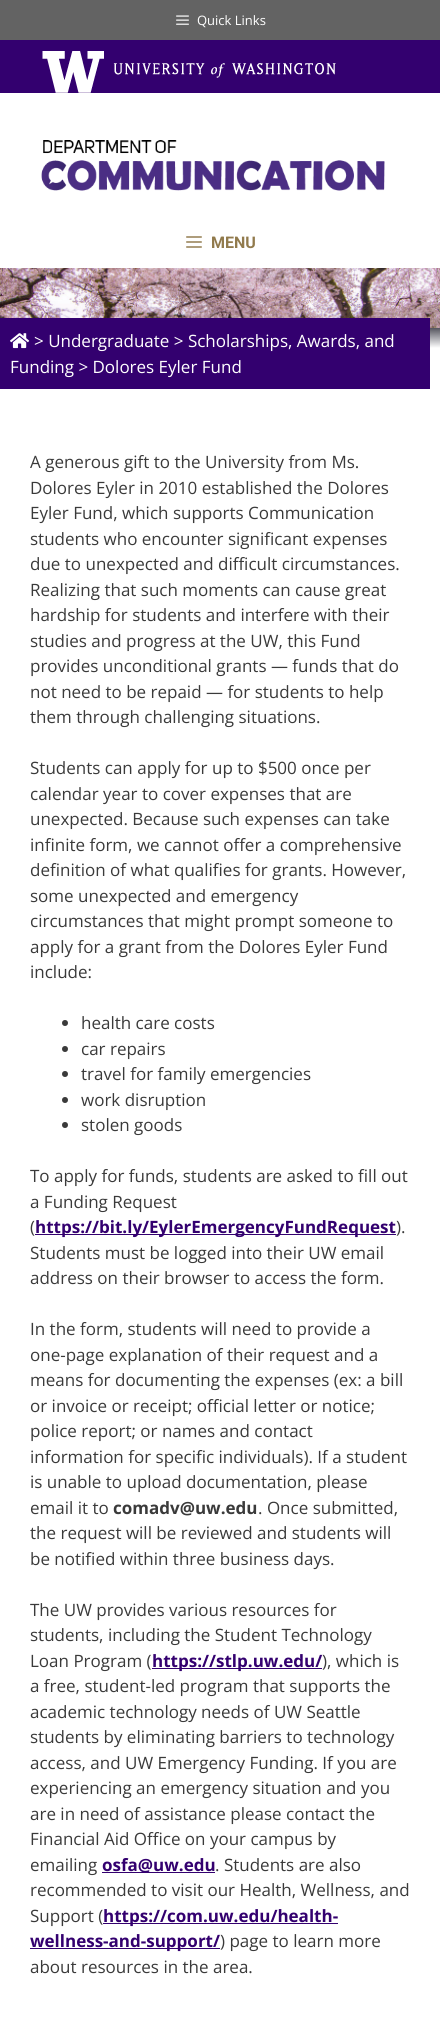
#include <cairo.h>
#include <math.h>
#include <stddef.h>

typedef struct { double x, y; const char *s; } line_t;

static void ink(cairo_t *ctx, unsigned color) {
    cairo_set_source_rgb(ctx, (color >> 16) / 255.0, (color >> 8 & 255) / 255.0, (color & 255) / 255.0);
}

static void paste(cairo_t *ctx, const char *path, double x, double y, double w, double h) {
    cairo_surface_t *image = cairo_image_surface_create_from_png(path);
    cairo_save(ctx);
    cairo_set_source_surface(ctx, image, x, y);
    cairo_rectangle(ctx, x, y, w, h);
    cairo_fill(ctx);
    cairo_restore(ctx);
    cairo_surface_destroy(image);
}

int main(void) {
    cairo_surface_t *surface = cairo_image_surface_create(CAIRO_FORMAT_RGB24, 440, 2032);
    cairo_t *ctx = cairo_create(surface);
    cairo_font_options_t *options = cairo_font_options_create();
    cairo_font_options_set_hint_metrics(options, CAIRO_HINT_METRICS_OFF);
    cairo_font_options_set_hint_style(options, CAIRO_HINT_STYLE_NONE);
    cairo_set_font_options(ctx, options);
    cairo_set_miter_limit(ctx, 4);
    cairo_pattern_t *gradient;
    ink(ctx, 0xFFFFFF);
    cairo_paint(ctx);
    ink(ctx, 0x636363);
    cairo_rectangle(ctx, 0, 0, 440, 40);
    cairo_fill(ctx);
    paste(ctx, "media/1.png", 176, 15, 13, 10);
    cairo_select_font_face(ctx, "Open Sans", CAIRO_FONT_SLANT_NORMAL, CAIRO_FONT_WEIGHT_NORMAL);
    cairo_set_font_size(ctx, 13);
    ink(ctx, 0xFFFFFF);
    cairo_move_to(ctx, 197, 25);
    cairo_show_text(ctx, "Quick Links");
    ink(ctx, 0x33006F);
    cairo_rectangle(ctx, 0, 40, 440, 53);
    cairo_fill(ctx);
    paste(ctx, "media/2.png", 42, 51, 294, 42);
    paste(ctx, "media/3.png", 41, 140, 344, 51);
    paste(ctx, "media/4.png", 186, 236, 16, 12);
    cairo_select_font_face(ctx, "Roboto", CAIRO_FONT_SLANT_NORMAL, CAIRO_FONT_WEIGHT_BOLD);
    cairo_set_font_size(ctx, 16);
    ink(ctx, 0x917A4C);
    cairo_move_to(ctx, 211, 248);
    cairo_show_text(ctx, "MENU");
    paste(ctx, "media/5.png", 0, 268, 440, 60);
    ink(ctx, 0x33006F);
    cairo_rectangle(ctx, 0, 318, 430, 71);
    cairo_fill(ctx);
    paste(ctx, "media/6.png", 10, 333, 20, 16);
    cairo_select_font_face(ctx, "Open Sans", CAIRO_FONT_SLANT_NORMAL, CAIRO_FONT_WEIGHT_NORMAL);
    cairo_set_font_size(ctx, 17);
    ink(ctx, 0xFFFFFF);
    cairo_move_to(ctx, 34, 347);
    cairo_show_text(ctx, "> Undergraduate > Scholarships, Awards, and");
    cairo_move_to(ctx, 10, 373);
    cairo_show_text(ctx, "Funding > Dolores Eyler Fund");
    ink(ctx, 0x3A3A3A);
    {
        static const line_t items[] = {
            {30, 468, "A generous gift to the University from Ms."},
            {30, 494, "Dolores Eyler in 2010 established the Dolores"},
            {30, 519, "Eyler Fund, which supports Communication"},
            {30, 545, "students who encounter significant expenses"},
            {30, 570, "due to unexpected and difficult circumstances."},
            {30, 596, "Realizing that such moments can cause great"},
            {30, 621, "hardship for students and interfere with their"},
            {30, 647, "studies and progress at the UW, this Fund"},
            {30, 672, "provides unconditional grants — funds that do"},
            {30, 698, "not need to be repaid — for students to help"},
            {30, 723, "them through challenging situations."},
            {30, 774, "Students can apply for up to $500 once per"},
            {30, 800, "calendar year to cover expenses that are"},
            {30, 825, "unexpected. Because such expenses can take"},
            {30, 851, "infinite form, we cannot offer a comprehensive"},
            {30, 876, "definition of what qualifies for grants. However,"},
            {30, 902, "some unexpected and emergency"},
            {30, 927, "circumstances that might prompt someone to"},
            {30, 953, "apply for a grant from the Dolores Eyler Fund"},
            {30, 978, "include:"},
        };
        for (size_t i = 0; i < sizeof items / sizeof *items; i++) {
            cairo_move_to(ctx, items[i].x, items[i].y);
            cairo_show_text(ctx, items[i].s);
        }
    }
    cairo_new_path(ctx);
    cairo_arc(ctx, 65, 1023, 3, 0, 2 * M_PI);
    cairo_fill(ctx);
    cairo_move_to(ctx, 81, 1029);
    cairo_show_text(ctx, "health care costs");
    cairo_new_path(ctx);
    cairo_arc(ctx, 65, 1049, 3, 0, 2 * M_PI);
    cairo_fill(ctx);
    cairo_move_to(ctx, 81, 1055);
    cairo_show_text(ctx, "car repairs");
    cairo_new_path(ctx);
    cairo_arc(ctx, 65, 1074, 3, 0, 2 * M_PI);
    cairo_fill(ctx);
    cairo_move_to(ctx, 81, 1080);
    cairo_show_text(ctx, "travel for family emergencies");
    cairo_new_path(ctx);
    cairo_arc(ctx, 65, 1100, 3, 0, 2 * M_PI);
    cairo_fill(ctx);
    cairo_move_to(ctx, 81, 1106);
    cairo_show_text(ctx, "work disruption");
    cairo_new_path(ctx);
    cairo_arc(ctx, 65, 1125, 3, 0, 2 * M_PI);
    cairo_fill(ctx);
    {
        static const line_t items[] = {
            {81, 1131, "stolen goods"},
            {30, 1182, "To apply for funds, students are asked to fill out"},
            {30, 1208, "a Funding Request"},
            {30, 1233, "("},
        };
        for (size_t i = 0; i < sizeof items / sizeof *items; i++) {
            cairo_move_to(ctx, items[i].x, items[i].y);
            cairo_show_text(ctx, items[i].s);
        }
    }
    ink(ctx, 0x33006F);
    cairo_rectangle(ctx, 35, 1234, 361, 1);
    cairo_fill(ctx);
    cairo_select_font_face(ctx, "Open Sans", CAIRO_FONT_SLANT_NORMAL, CAIRO_FONT_WEIGHT_BOLD);
    cairo_move_to(ctx, 35, 1233);
    cairo_show_text(ctx, "https://bit.ly/EylerEmergencyFundRequest");
    cairo_select_font_face(ctx, "Open Sans", CAIRO_FONT_SLANT_NORMAL, CAIRO_FONT_WEIGHT_NORMAL);
    ink(ctx, 0x3A3A3A);
    {
        static const line_t items[] = {
            {396, 1233, ")."},
            {30, 1259, "Students must be logged into their UW email"},
            {30, 1284, "address on their browser to access the form."},
            {30, 1335, "In the form, students will need to provide a"},
            {30, 1361, "one-page explanation of their request and a"},
            {30, 1386, "means for documenting the expenses (ex: a bill"},
            {30, 1412, "or invoice or receipt; official letter or notice;"},
            {30, 1437, "police report; or names and contact"},
            {30, 1463, "information for specific individuals). If a student"},
            {30, 1488, "is unable to upload documentation, please"},
            {30, 1514, "email it to"},
        };
        for (size_t i = 0; i < sizeof items / sizeof *items; i++) {
            cairo_move_to(ctx, items[i].x, items[i].y);
            cairo_show_text(ctx, items[i].s);
        }
    }
    cairo_select_font_face(ctx, "Open Sans", CAIRO_FONT_SLANT_NORMAL, CAIRO_FONT_WEIGHT_BOLD);
    cairo_move_to(ctx, 113, 1514);
    cairo_show_text(ctx, "comadv@uw.edu");
    cairo_select_font_face(ctx, "Open Sans", CAIRO_FONT_SLANT_NORMAL, CAIRO_FONT_WEIGHT_NORMAL);
    {
        static const line_t items[] = {
            {258, 1514, ". Once submitted,"},
            {30, 1539, "the request will be reviewed and students will"},
            {30, 1565, "be notified within three business days."},
            {30, 1616, "The UW provides various resources for"},
            {30, 1641, "students, including the Student Technology"},
            {30, 1667, "Loan Program ("},
        };
        for (size_t i = 0; i < sizeof items / sizeof *items; i++) {
            cairo_move_to(ctx, items[i].x, items[i].y);
            cairo_show_text(ctx, items[i].s);
        }
    }
    ink(ctx, 0x33006F);
    cairo_rectangle(ctx, 152, 1668, 170, 1);
    cairo_fill(ctx);
    cairo_select_font_face(ctx, "Open Sans", CAIRO_FONT_SLANT_NORMAL, CAIRO_FONT_WEIGHT_BOLD);
    cairo_move_to(ctx, 152, 1667);
    cairo_show_text(ctx, "https://stlp.uw.edu/");
    cairo_select_font_face(ctx, "Open Sans", CAIRO_FONT_SLANT_NORMAL, CAIRO_FONT_WEIGHT_NORMAL);
    ink(ctx, 0x3A3A3A);
    {
        static const line_t items[] = {
            {322, 1667, "), which is"},
            {30, 1692, "a free, student-led program that supports the"},
            {30, 1718, "academic technology needs of UW Seattle"},
            {30, 1743, "students by eliminating barriers to technology"},
            {30, 1769, "access, and UW Emergency Funding. If you are"},
            {30, 1794, "experiencing an emergency situation and you"},
            {30, 1820, "are in need of assistance please contact the"},
            {30, 1845, "Financial Aid Office on your campus by"},
            {30, 1871, "emailing"},
        };
        for (size_t i = 0; i < sizeof items / sizeof *items; i++) {
            cairo_move_to(ctx, items[i].x, items[i].y);
            cairo_show_text(ctx, items[i].s);
        }
    }
    ink(ctx, 0x33006F);
    cairo_rectangle(ctx, 102, 1872, 113, 1);
    cairo_fill(ctx);
    cairo_select_font_face(ctx, "Open Sans", CAIRO_FONT_SLANT_NORMAL, CAIRO_FONT_WEIGHT_BOLD);
    cairo_move_to(ctx, 102, 1871);
    cairo_show_text(ctx, "osfa@uw.edu");
    cairo_select_font_face(ctx, "Open Sans", CAIRO_FONT_SLANT_NORMAL, CAIRO_FONT_WEIGHT_NORMAL);
    ink(ctx, 0x3A3A3A);
    {
        static const line_t items[] = {
            {215, 1871, ". Students are also"},
            {30, 1896, "recommended to visit our Health, Wellness, and"},
            {30, 1922, "Support ("},
        };
        for (size_t i = 0; i < sizeof items / sizeof *items; i++) {
            cairo_move_to(ctx, items[i].x, items[i].y);
            cairo_show_text(ctx, items[i].s);
        }
    }
    ink(ctx, 0x33006F);
    cairo_rectangle(ctx, 103, 1923, 235, 1);
    cairo_fill(ctx);
    cairo_select_font_face(ctx, "Open Sans", CAIRO_FONT_SLANT_NORMAL, CAIRO_FONT_WEIGHT_BOLD);
    cairo_move_to(ctx, 103, 1922);
    cairo_show_text(ctx, "https://com.uw.edu/health-");
    cairo_rectangle(ctx, 30, 1948, 190, 1);
    cairo_fill(ctx);
    cairo_move_to(ctx, 30, 1947);
    cairo_show_text(ctx, "wellness-and-support/");
    cairo_select_font_face(ctx, "Open Sans", CAIRO_FONT_SLANT_NORMAL, CAIRO_FONT_WEIGHT_NORMAL);
    ink(ctx, 0x3A3A3A);
    cairo_move_to(ctx, 220, 1947);
    cairo_show_text(ctx, ") page to learn more");
    cairo_move_to(ctx, 30, 1973);
    cairo_show_text(ctx, "about resources in the area.");
    gradient = cairo_pattern_create_linear(220, 328, 220, 348);
    cairo_pattern_add_color_stop_rgba(gradient, 0.01, 0.341, 0.341, 0.376, 1);
    cairo_pattern_add_color_stop_rgba(gradient, 1, 1, 1, 1, 1);
    cairo_set_source(ctx, gradient);
    cairo_pattern_destroy(gradient);
    cairo_rectangle(ctx, 430, 328, 10, 20);
    cairo_fill(ctx);
    cairo_surface_write_to_png(surface, "image.png");
    cairo_font_options_destroy(options);
    cairo_destroy(ctx);
    cairo_surface_destroy(surface);
    return 0;
}
